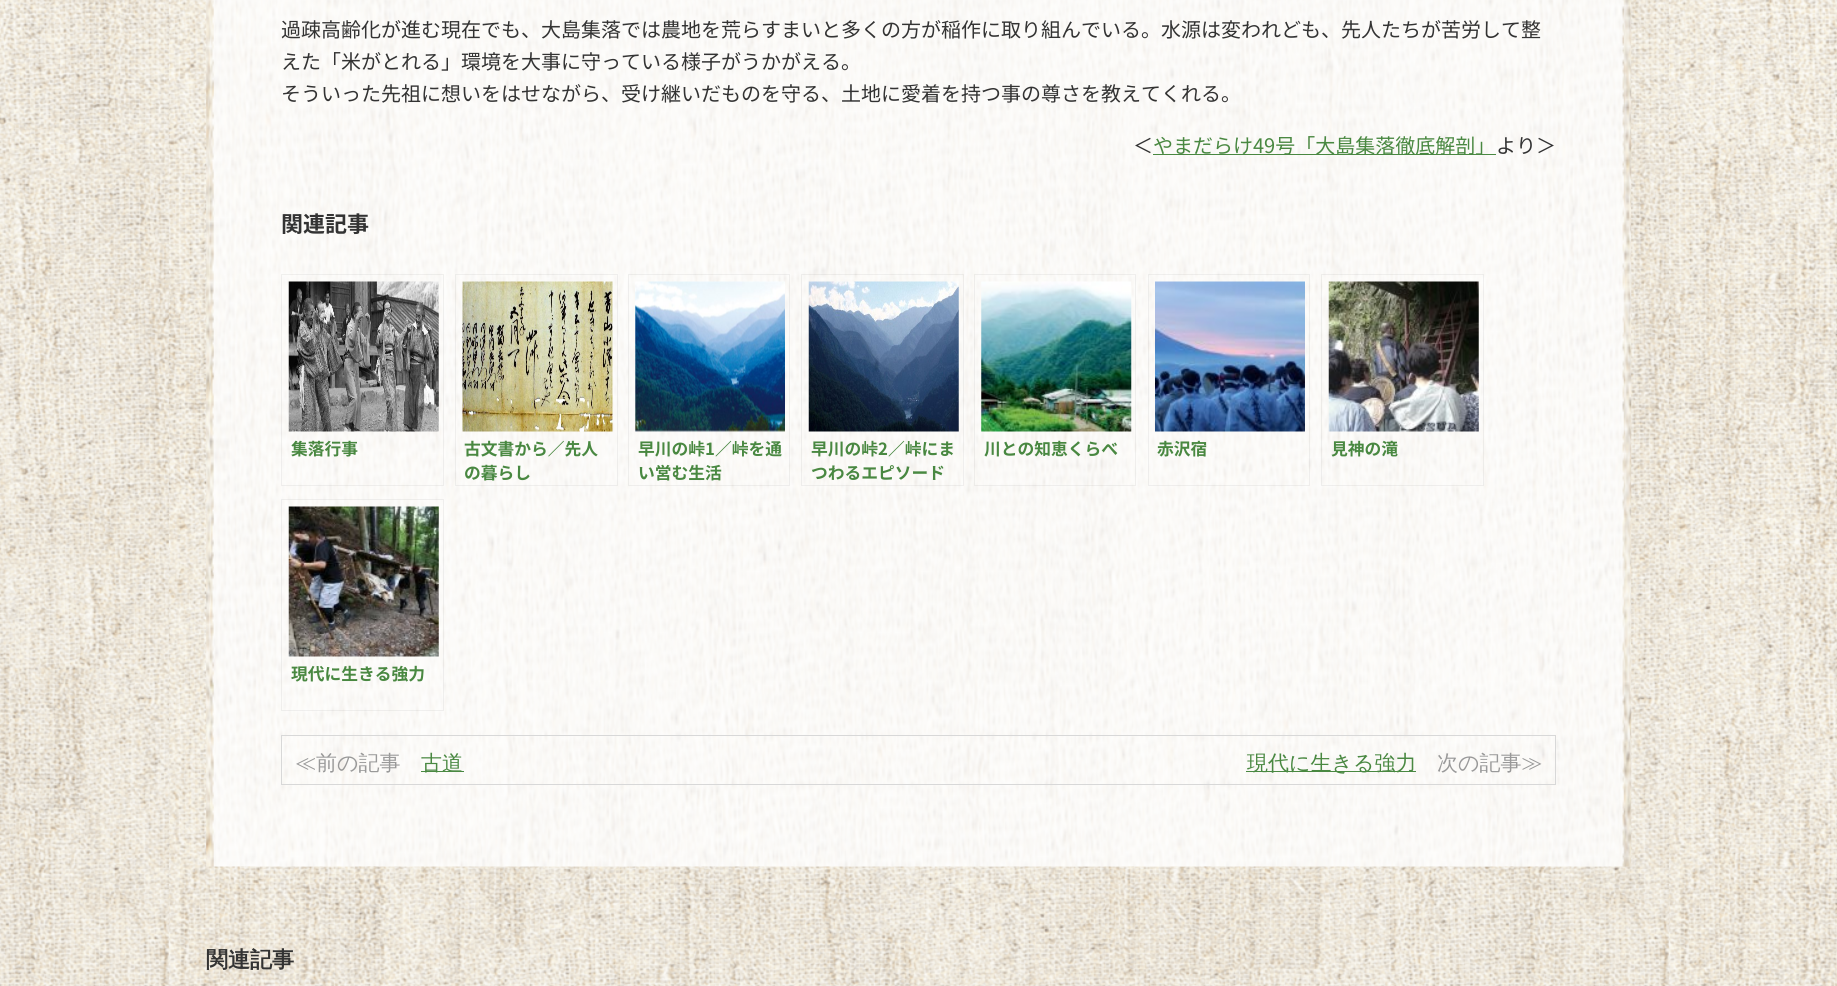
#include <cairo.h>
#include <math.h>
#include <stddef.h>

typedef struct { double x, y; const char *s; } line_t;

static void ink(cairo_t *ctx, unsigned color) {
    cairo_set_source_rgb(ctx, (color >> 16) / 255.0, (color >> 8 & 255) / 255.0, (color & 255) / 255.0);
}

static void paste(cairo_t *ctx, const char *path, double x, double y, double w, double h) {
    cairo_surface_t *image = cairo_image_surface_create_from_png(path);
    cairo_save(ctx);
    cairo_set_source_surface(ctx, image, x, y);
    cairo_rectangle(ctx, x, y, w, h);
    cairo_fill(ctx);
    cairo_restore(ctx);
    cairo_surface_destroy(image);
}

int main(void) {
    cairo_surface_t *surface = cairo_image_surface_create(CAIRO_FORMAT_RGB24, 1837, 986);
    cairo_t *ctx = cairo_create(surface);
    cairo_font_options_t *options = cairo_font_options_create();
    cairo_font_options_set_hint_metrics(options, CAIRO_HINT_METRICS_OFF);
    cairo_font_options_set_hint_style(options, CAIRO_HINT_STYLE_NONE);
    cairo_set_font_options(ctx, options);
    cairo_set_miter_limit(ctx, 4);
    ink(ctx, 0xFFFFFF);
    cairo_paint(ctx);
    paste(ctx, "media/1.png", 0, 0, 1837, 986);
    paste(ctx, "media/2.png", 206, 0, 1426, 867);
    cairo_select_font_face(ctx, "Noto Sans JP", CAIRO_FONT_SLANT_NORMAL, CAIRO_FONT_WEIGHT_NORMAL);
    cairo_set_font_size(ctx, 20);
    ink(ctx, 0x333333);
    {
        static const line_t items[] = {
            {281, 37, "過疎高齢化が進む現在でも、大島集落では農地を荒らすまいと多くの方が稲作に取り組んでいる。水源は変われども、先人たちが苦労して整"},
            {281, 69, "えた「米がとれる」環境を大事に守っている様子がうかがえる。"},
            {281, 101, "そういった先祖に想いをはせながら、受け継いだものを守る、土地に愛着を持つ事の尊さを教えてくれる。"},
            {1133, 153, "＜"},
        };
        for (size_t i = 0; i < sizeof items / sizeof *items; i++) {
            cairo_move_to(ctx, items[i].x, items[i].y);
            cairo_show_text(ctx, items[i].s);
        }
    }
    ink(ctx, 0x498841);
    cairo_rectangle(ctx, 1153, 154, 343, 1);
    cairo_fill(ctx);
    cairo_move_to(ctx, 1153, 153);
    cairo_show_text(ctx, "やまだらけ49号「大島集落徹底解剖」");
    ink(ctx, 0x333333);
    cairo_move_to(ctx, 1496, 153);
    cairo_show_text(ctx, "より＞");
    cairo_select_font_face(ctx, "Noto Sans JP", CAIRO_FONT_SLANT_NORMAL, CAIRO_FONT_WEIGHT_BOLD);
    cairo_set_font_size(ctx, 22);
    cairo_move_to(ctx, 281, 232);
    cairo_show_text(ctx, "関連記事");
    cairo_rectangle(ctx, 281.5, 274.5, 162, 211);
    cairo_set_source_rgba(ctx, 0.502, 0.502, 0.502, 0.1);
    cairo_set_line_width(ctx, 1);
    cairo_stroke(ctx);
    paste(ctx, "media/3.png", 288, 281, 151, 151);
    cairo_set_font_size(ctx, 16.75);
    ink(ctx, 0x498841);
    cairo_move_to(ctx, 291, 455);
    cairo_show_text(ctx, "集落行事");
    cairo_rectangle(ctx, 455.5, 274.5, 162, 211);
    cairo_set_source_rgba(ctx, 0.502, 0.502, 0.502, 0.1);
    cairo_stroke(ctx);
    paste(ctx, "media/4.png", 462, 281, 151, 151);
    ink(ctx, 0x498841);
    cairo_move_to(ctx, 464, 455);
    cairo_show_text(ctx, "古文書から／先人");
    cairo_move_to(ctx, 464, 479);
    cairo_show_text(ctx, "の暮らし");
    cairo_rectangle(ctx, 628.5, 274.5, 161, 211);
    cairo_set_source_rgba(ctx, 0.502, 0.502, 0.502, 0.1);
    cairo_stroke(ctx);
    paste(ctx, "media/5.png", 635, 281, 150, 151);
    ink(ctx, 0x498841);
    cairo_move_to(ctx, 638, 455);
    cairo_show_text(ctx, "早川の峠1／峠を通");
    cairo_move_to(ctx, 638, 479);
    cairo_show_text(ctx, "い営む生活");
    cairo_rectangle(ctx, 801.5, 274.5, 162, 211);
    cairo_set_source_rgba(ctx, 0.502, 0.502, 0.502, 0.1);
    cairo_stroke(ctx);
    paste(ctx, "media/6.png", 808, 281, 151, 151);
    ink(ctx, 0x498841);
    cairo_move_to(ctx, 811, 455);
    cairo_show_text(ctx, "早川の峠2／峠にま");
    cairo_move_to(ctx, 811, 479);
    cairo_show_text(ctx, "つわるエピソード");
    cairo_rectangle(ctx, 974.5, 274.5, 161, 211);
    cairo_set_source_rgba(ctx, 0.502, 0.502, 0.502, 0.1);
    cairo_stroke(ctx);
    paste(ctx, "media/7.png", 981, 281, 151, 151);
    ink(ctx, 0x498841);
    cairo_move_to(ctx, 984, 455);
    cairo_show_text(ctx, "川との知恵くらべ");
    cairo_rectangle(ctx, 1148.5, 274.5, 161, 211);
    cairo_set_source_rgba(ctx, 0.502, 0.502, 0.502, 0.1);
    cairo_stroke(ctx);
    paste(ctx, "media/8.png", 1155, 281, 150, 151);
    ink(ctx, 0x498841);
    cairo_move_to(ctx, 1157, 455);
    cairo_show_text(ctx, "赤沢宿");
    cairo_rectangle(ctx, 1321.5, 274.5, 162, 211);
    cairo_set_source_rgba(ctx, 0.502, 0.502, 0.502, 0.1);
    cairo_stroke(ctx);
    paste(ctx, "media/9.png", 1328, 281, 151, 151);
    ink(ctx, 0x498841);
    cairo_move_to(ctx, 1331, 455);
    cairo_show_text(ctx, "見神の滝");
    cairo_rectangle(ctx, 281.5, 499.5, 162, 211);
    cairo_set_source_rgba(ctx, 0.502, 0.502, 0.502, 0.1);
    cairo_stroke(ctx);
    paste(ctx, "media/10.png", 288, 506, 151, 151);
    ink(ctx, 0x498841);
    cairo_move_to(ctx, 291, 680);
    cairo_show_text(ctx, "現代に生きる強力");
    cairo_rectangle(ctx, 281.5, 735.5, 1274, 49);
    ink(ctx, 0xD8D8D8);
    cairo_stroke(ctx);
    cairo_select_font_face(ctx, "WenQuanYi Zen Hei Medium", CAIRO_FONT_SLANT_NORMAL, CAIRO_FONT_WEIGHT_NORMAL);
    cairo_set_font_size(ctx, 21);
    ink(ctx, 0x999999);
    cairo_move_to(ctx, 295, 770);
    cairo_show_text(ctx, "≪前の記事");
    ink(ctx, 0x498841);
    cairo_rectangle(ctx, 421, 771, 43, 1);
    cairo_fill(ctx);
    cairo_move_to(ctx, 421, 770);
    cairo_show_text(ctx, "古道");
    cairo_rectangle(ctx, 1246, 771, 170, 1);
    cairo_fill(ctx);
    cairo_move_to(ctx, 1247, 770);
    cairo_show_text(ctx, "現代に生きる強力");
    ink(ctx, 0x999999);
    cairo_move_to(ctx, 1437, 770);
    cairo_show_text(ctx, "次の記事≫");
    cairo_select_font_face(ctx, "WenQuanYi Zen Hei", CAIRO_FONT_SLANT_NORMAL, CAIRO_FONT_WEIGHT_BOLD);
    cairo_set_font_size(ctx, 22);
    ink(ctx, 0x333333);
    cairo_move_to(ctx, 206, 967);
    cairo_show_text(ctx, "関連記事");
    cairo_surface_write_to_png(surface, "image.png");
    cairo_font_options_destroy(options);
    cairo_destroy(ctx);
    cairo_surface_destroy(surface);
    return 0;
}
